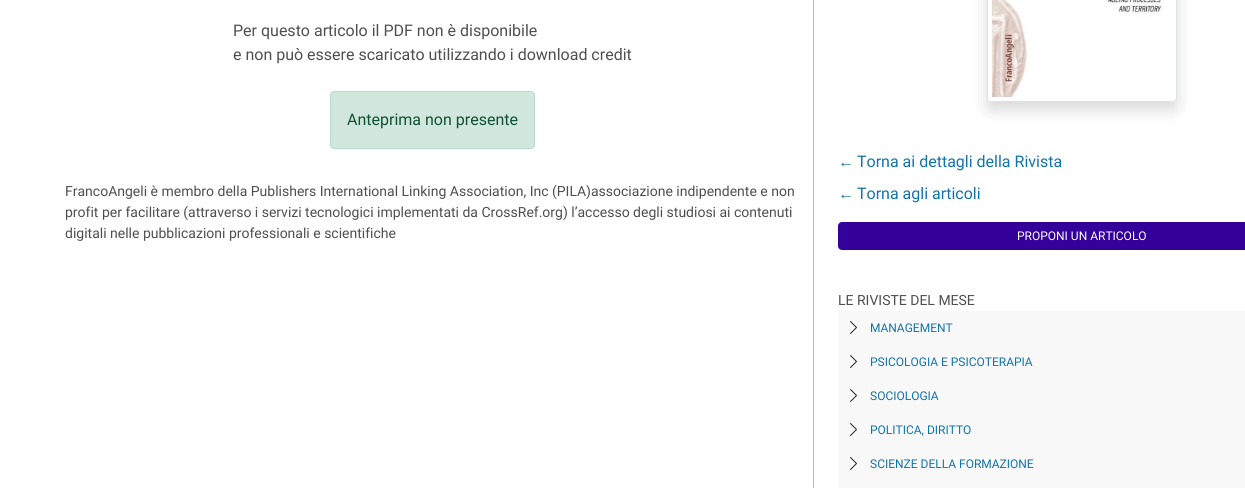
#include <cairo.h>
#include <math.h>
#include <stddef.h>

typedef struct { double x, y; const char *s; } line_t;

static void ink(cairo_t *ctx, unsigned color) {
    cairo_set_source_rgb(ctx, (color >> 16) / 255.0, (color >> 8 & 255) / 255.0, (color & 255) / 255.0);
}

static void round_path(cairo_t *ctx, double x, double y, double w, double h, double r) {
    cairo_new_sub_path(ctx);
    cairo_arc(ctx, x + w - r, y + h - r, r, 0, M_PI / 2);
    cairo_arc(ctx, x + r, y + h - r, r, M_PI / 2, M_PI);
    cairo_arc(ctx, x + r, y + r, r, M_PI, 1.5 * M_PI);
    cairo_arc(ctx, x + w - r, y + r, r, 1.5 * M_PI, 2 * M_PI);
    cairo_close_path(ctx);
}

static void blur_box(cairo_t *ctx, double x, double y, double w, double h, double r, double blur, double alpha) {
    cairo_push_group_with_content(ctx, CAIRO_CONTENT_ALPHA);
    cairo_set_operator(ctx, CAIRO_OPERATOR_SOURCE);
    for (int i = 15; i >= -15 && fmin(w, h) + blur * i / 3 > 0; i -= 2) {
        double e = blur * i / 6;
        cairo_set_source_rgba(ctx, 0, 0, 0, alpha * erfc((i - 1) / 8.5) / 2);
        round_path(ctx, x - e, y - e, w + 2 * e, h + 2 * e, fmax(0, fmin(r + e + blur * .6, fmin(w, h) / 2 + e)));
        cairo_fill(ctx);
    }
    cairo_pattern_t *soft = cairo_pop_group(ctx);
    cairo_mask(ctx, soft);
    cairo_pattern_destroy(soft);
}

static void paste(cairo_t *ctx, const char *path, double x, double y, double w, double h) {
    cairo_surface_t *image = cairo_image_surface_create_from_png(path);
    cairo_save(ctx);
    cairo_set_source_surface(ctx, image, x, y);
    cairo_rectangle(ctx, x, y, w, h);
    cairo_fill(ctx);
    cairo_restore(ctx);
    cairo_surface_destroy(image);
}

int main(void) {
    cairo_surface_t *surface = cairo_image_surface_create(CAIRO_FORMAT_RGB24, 1245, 488);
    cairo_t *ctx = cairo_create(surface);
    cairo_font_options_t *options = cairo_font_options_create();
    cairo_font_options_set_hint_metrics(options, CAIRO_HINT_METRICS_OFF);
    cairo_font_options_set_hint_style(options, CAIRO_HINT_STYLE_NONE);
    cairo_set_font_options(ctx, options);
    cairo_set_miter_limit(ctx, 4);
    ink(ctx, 0xFFFFFF);
    cairo_paint(ctx);
    cairo_select_font_face(ctx, "Roboto", CAIRO_FONT_SLANT_NORMAL, CAIRO_FONT_WEIGHT_NORMAL);
    cairo_set_font_size(ctx, 16);
    ink(ctx, 0x4F4F4F);
    cairo_move_to(ctx, 233, 36);
    cairo_show_text(ctx, "Per questo articolo il PDF non è disponibile");
    cairo_move_to(ctx, 233, 60);
    cairo_show_text(ctx, "e non può essere scaricato utilizzando i download credit");
    ink(ctx, 0xD1E7DD);
    round_path(ctx, 330.5, 91.5, 204, 57, 3.5);
    cairo_fill_preserve(ctx);
    ink(ctx, 0xBADBCC);
    cairo_set_line_width(ctx, 1);
    cairo_stroke(ctx);
    ink(ctx, 0x0F5132);
    cairo_move_to(ctx, 347, 125);
    cairo_show_text(ctx, "Anteprima non presente");
    cairo_set_font_size(ctx, 14);
    ink(ctx, 0x4F4F4F);
    {
        static const line_t items[] = {
            {65, 196, "FrancoAngeli è membro della Publishers International Linking Association, Inc (PILA)associazione indipendente e non"},
            {65, 217, "profit per facilitare (attraverso i servizi tecnologici implementati da CrossRef.org) l’accesso degli studiosi ai contenuti"},
            {65, 238, "digitali nelle pubblicazioni professionali e scientifiche"},
        };
        for (size_t i = 0; i < sizeof items / sizeof *items; i++) {
            cairo_move_to(ctx, items[i].x, items[i].y);
            cairo_show_text(ctx, items[i].s);
        }
    }
    ink(ctx, 0xBDBDBD);
    cairo_rectangle(ctx, 813, 0, 1, 488);
    cairo_fill(ctx);
    ink(ctx, 0x000000);
    blur_box(ctx, 987, -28, 190, 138, 4, 8, 0.15);
    ink(ctx, 0xFFFFFF);
    round_path(ctx, 987.5, -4.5, 189, 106, 3.5);
    cairo_fill_preserve(ctx);
    ink(ctx, 0xDEE2E6);
    cairo_stroke(ctx);
    paste(ctx, "media/1.png", 992, 0, 173, 97);
    cairo_select_font_face(ctx, "Liberation Sans", CAIRO_FONT_SLANT_NORMAL, CAIRO_FONT_WEIGHT_NORMAL);
    cairo_set_font_size(ctx, 16);
    ink(ctx, 0x1074AD);
    cairo_move_to(ctx, 838, 167);
    cairo_show_text(ctx, "←");
    cairo_select_font_face(ctx, "Roboto", CAIRO_FONT_SLANT_NORMAL, CAIRO_FONT_WEIGHT_NORMAL);
    cairo_move_to(ctx, 857, 167);
    cairo_show_text(ctx, "Torna ai dettagli della Rivista");
    cairo_select_font_face(ctx, "Liberation Sans", CAIRO_FONT_SLANT_NORMAL, CAIRO_FONT_WEIGHT_NORMAL);
    cairo_move_to(ctx, 838, 199);
    cairo_show_text(ctx, "←");
    cairo_select_font_face(ctx, "Roboto", CAIRO_FONT_SLANT_NORMAL, CAIRO_FONT_WEIGHT_NORMAL);
    cairo_move_to(ctx, 857, 199);
    cairo_show_text(ctx, "Torna agli articoli");
    ink(ctx, 0x330099);
    round_path(ctx, 838, 222, 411, 28, 4);
    cairo_fill(ctx);
    cairo_set_font_size(ctx, 12);
    ink(ctx, 0xFFFFFF);
    cairo_move_to(ctx, 1017, 240);
    cairo_show_text(ctx, "PROPONI UN ARTICOLO");
    cairo_set_font_size(ctx, 14);
    ink(ctx, 0x4F4F4F);
    cairo_move_to(ctx, 838, 305);
    cairo_show_text(ctx, "LE RIVISTE DEL MESE");
    ink(ctx, 0xF8F8F8);
    cairo_rectangle(ctx, 838, 311, 407, 177);
    cairo_fill(ctx);
    paste(ctx, "media/2.png", 850, 321, 7, 13);
    cairo_set_font_size(ctx, 12);
    ink(ctx, 0x1074AD);
    cairo_move_to(ctx, 870, 332);
    cairo_show_text(ctx, "MANAGEMENT");
    paste(ctx, "media/2.png", 850, 355, 7, 13);
    cairo_move_to(ctx, 870, 366);
    cairo_show_text(ctx, "PSICOLOGIA E PSICOTERAPIA");
    paste(ctx, "media/2.png", 850, 389, 7, 13);
    cairo_move_to(ctx, 870, 400);
    cairo_show_text(ctx, "SOCIOLOGIA");
    paste(ctx, "media/2.png", 850, 423, 7, 13);
    cairo_move_to(ctx, 870, 434);
    cairo_show_text(ctx, "POLITICA, DIRITTO");
    paste(ctx, "media/2.png", 850, 457, 7, 13);
    cairo_move_to(ctx, 870, 468);
    cairo_show_text(ctx, "SCIENZE DELLA FORMAZIONE");
    cairo_surface_write_to_png(surface, "image.png");
    cairo_font_options_destroy(options);
    cairo_destroy(ctx);
    cairo_surface_destroy(surface);
    return 0;
}
